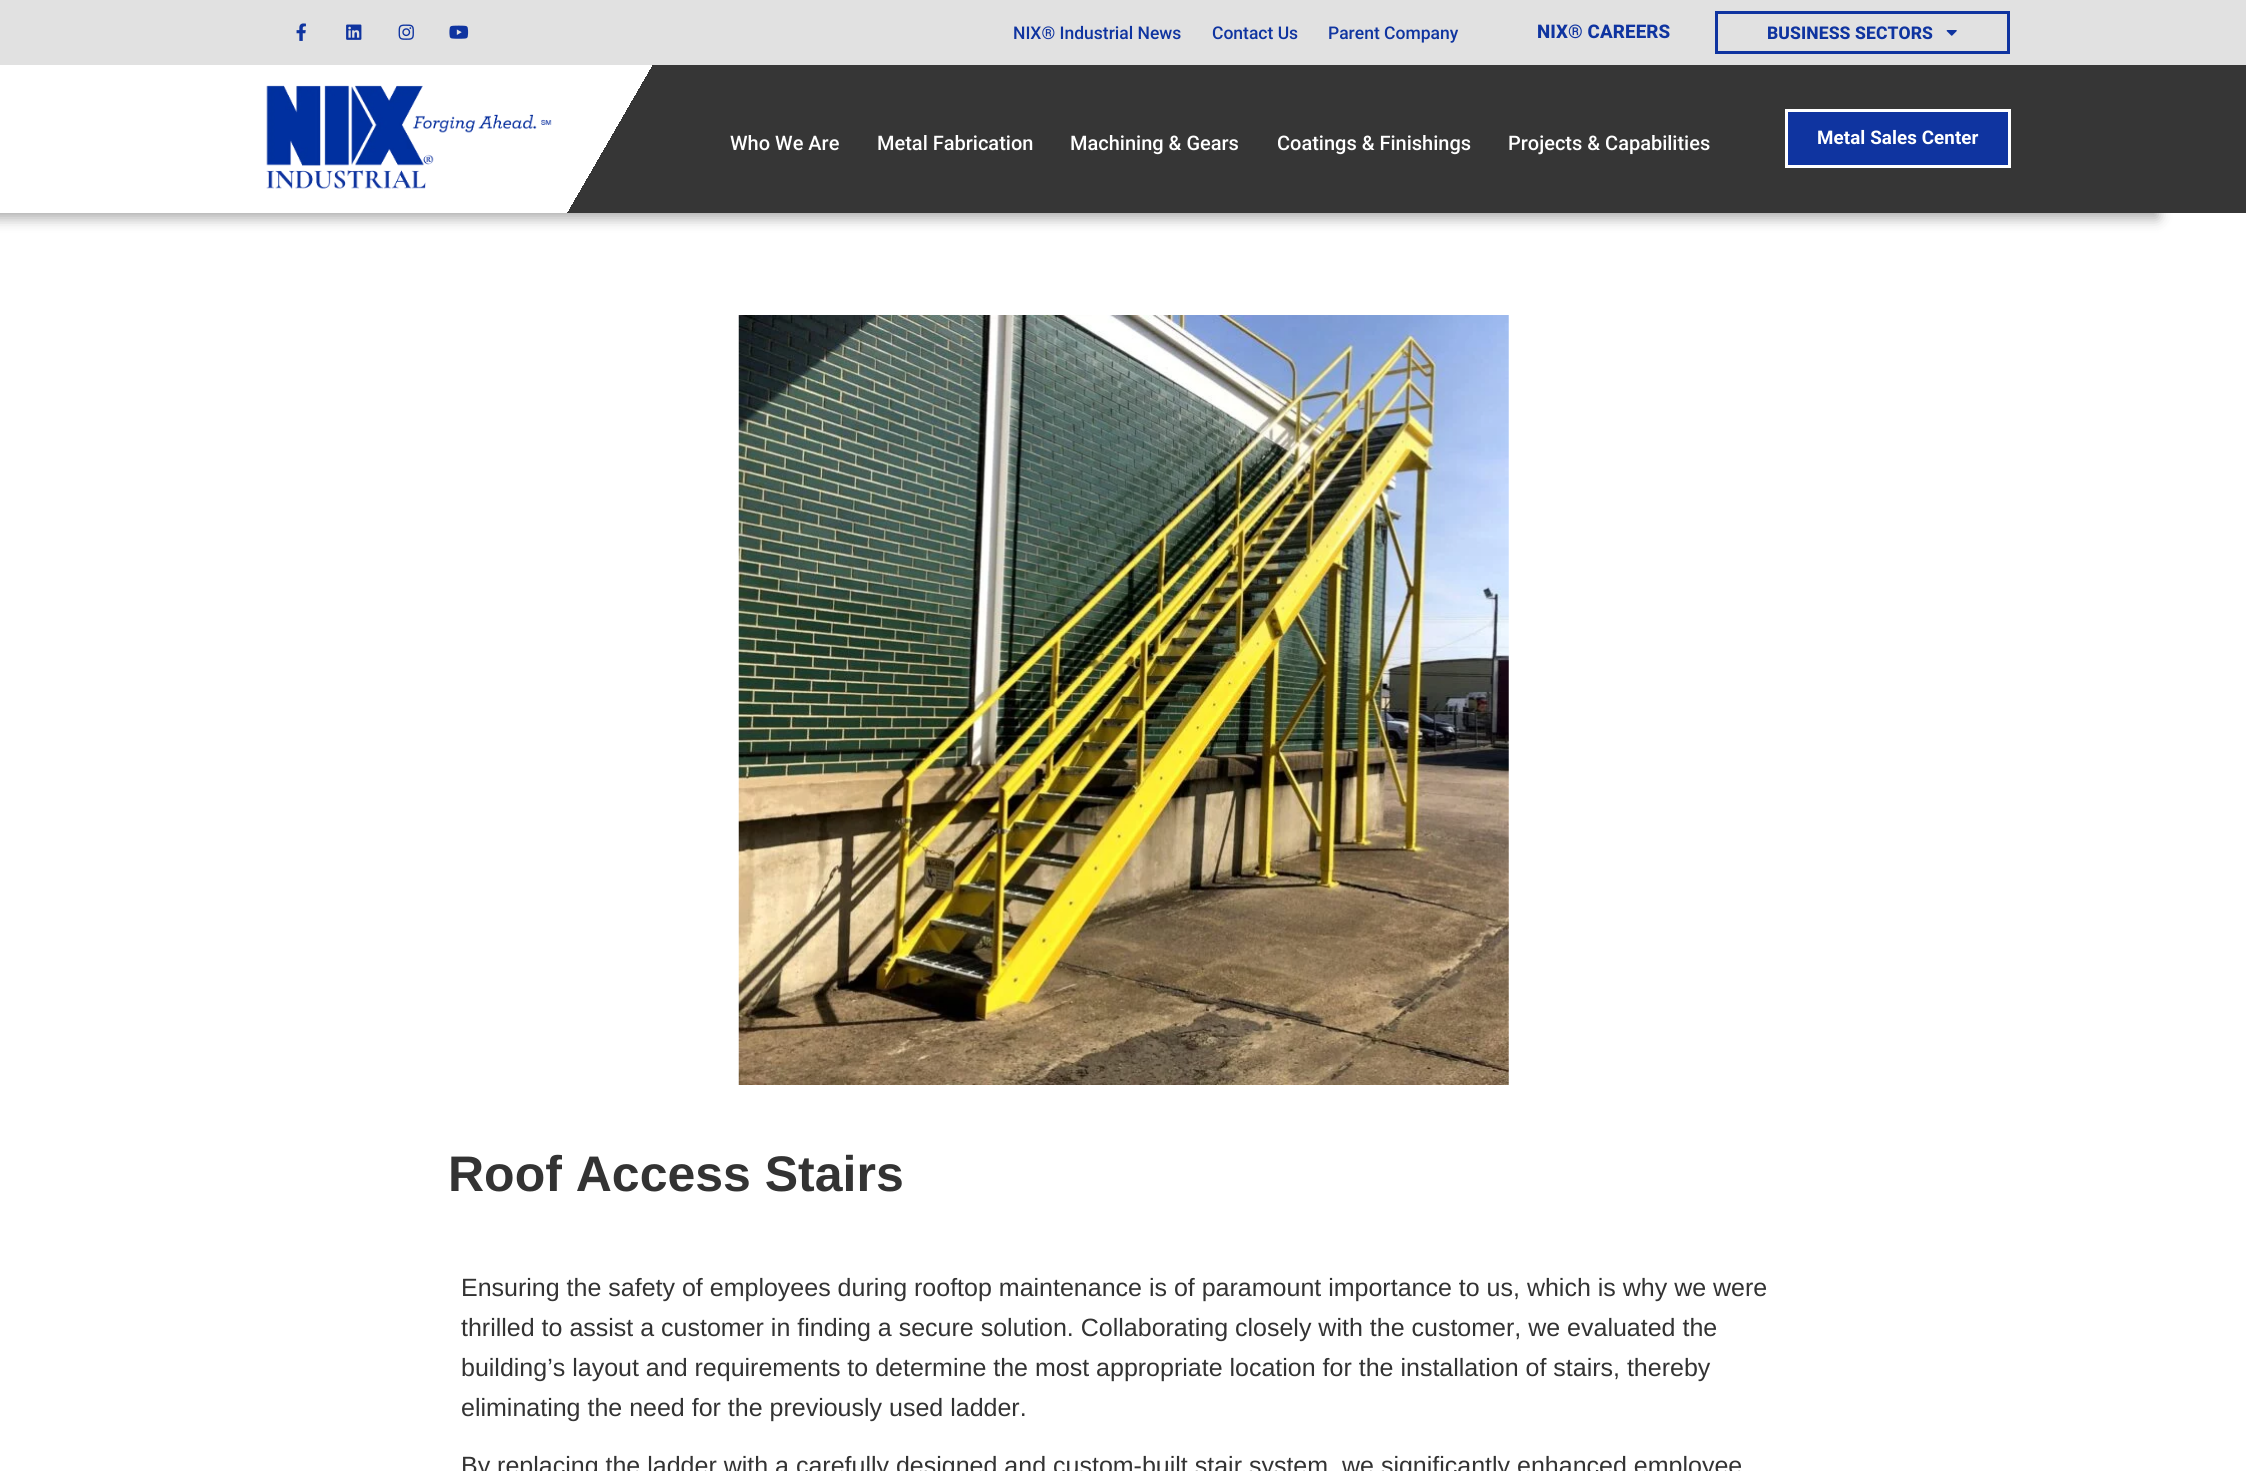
#include <cairo.h>
#include <math.h>
#include <stddef.h>

typedef struct { double x, y; const char *s; } line_t;

static void ink(cairo_t *ctx, unsigned color) {
    cairo_set_source_rgb(ctx, (color >> 16) / 255.0, (color >> 8 & 255) / 255.0, (color & 255) / 255.0);
}

static void write_spaced(cairo_t *ctx, double x, double y, const char *s, double letter, double word) {
    cairo_move_to(ctx, x, y);
    while (*s) {
        char ch[5] = {0};
        int n = 0;
        do ch[n++] = *s++; while ((*s & 0xC0) == 0x80);
        cairo_show_text(ctx, ch);
        cairo_rel_move_to(ctx, letter + word * (*ch == ' '), 0);
    }
}

static void round_path(cairo_t *ctx, double x, double y, double w, double h, double r) {
    cairo_new_sub_path(ctx);
    cairo_arc(ctx, x + w - r, y + h - r, r, 0, M_PI / 2);
    cairo_arc(ctx, x + r, y + h - r, r, M_PI / 2, M_PI);
    cairo_arc(ctx, x + r, y + r, r, M_PI, 1.5 * M_PI);
    cairo_arc(ctx, x + w - r, y + r, r, 1.5 * M_PI, 2 * M_PI);
    cairo_close_path(ctx);
}

static void blur_box(cairo_t *ctx, double x, double y, double w, double h, double r, double blur, double alpha) {
    cairo_push_group_with_content(ctx, CAIRO_CONTENT_ALPHA);
    cairo_set_operator(ctx, CAIRO_OPERATOR_SOURCE);
    for (int i = 15; i >= -15 && fmin(w, h) + blur * i / 3 > 0; i -= 2) {
        double e = blur * i / 6;
        cairo_set_source_rgba(ctx, 0, 0, 0, alpha * erfc((i - 1) / 8.5) / 2);
        round_path(ctx, x - e, y - e, w + 2 * e, h + 2 * e, fmax(0, fmin(r + e + blur * .6, fmin(w, h) / 2 + e)));
        cairo_fill(ctx);
    }
    cairo_pattern_t *soft = cairo_pop_group(ctx);
    cairo_mask(ctx, soft);
    cairo_pattern_destroy(soft);
}

static void paste(cairo_t *ctx, const char *path, double x, double y, double w, double h) {
    cairo_surface_t *image = cairo_image_surface_create_from_png(path);
    cairo_save(ctx);
    cairo_set_source_surface(ctx, image, x, y);
    cairo_rectangle(ctx, x, y, w, h);
    cairo_fill(ctx);
    cairo_restore(ctx);
    cairo_surface_destroy(image);
}

int main(void) {
    cairo_surface_t *surface = cairo_image_surface_create(CAIRO_FORMAT_RGB24, 2246, 1471);
    cairo_t *ctx = cairo_create(surface);
    cairo_font_options_t *options = cairo_font_options_create();
    cairo_font_options_set_hint_metrics(options, CAIRO_HINT_METRICS_OFF);
    cairo_font_options_set_hint_style(options, CAIRO_HINT_STYLE_NONE);
    cairo_set_font_options(ctx, options);
    cairo_set_miter_limit(ctx, 4);
    cairo_pattern_t *gradient;
    ink(ctx, 0xFFFFFF);
    cairo_paint(ctx);
    ink(ctx, 0xE1E1E1);
    cairo_rectangle(ctx, 0, 0, 2246, 65);
    cairo_fill(ctx);
    paste(ctx, "media/1.png", 296, 23, 10, 18);
    paste(ctx, "media/2.png", 346, 24, 16, 16);
    paste(ctx, "media/3.png", 398, 24, 16, 16);
    paste(ctx, "media/4.png", 449, 25, 20, 14);
    cairo_select_font_face(ctx, "Roboto Medium", CAIRO_FONT_SLANT_NORMAL, CAIRO_FONT_WEIGHT_NORMAL);
    cairo_set_font_size(ctx, 17.5);
    ink(ctx, 0x0F34A0);
    {
        static const line_t items[] = {
            {1013, 39, "NIX® Industrial News"},
            {1212, 39, "Contact Us"},
            {1328, 39, "Parent Company"},
        };
        for (size_t i = 0; i < sizeof items / sizeof *items; i++) {
            cairo_move_to(ctx, items[i].x, items[i].y);
            cairo_show_text(ctx, items[i].s);
        }
    }
    cairo_select_font_face(ctx, "Roboto ExtraBold", CAIRO_FONT_SLANT_NORMAL, CAIRO_FONT_WEIGHT_NORMAL);
    cairo_set_font_size(ctx, 18.75);
    write_spaced(ctx, 1537, 38, "NIX® CAREERS", 0.1, 0);
    cairo_rectangle(ctx, 1716.5, 12.5, 292, 40);
    cairo_set_line_width(ctx, 3);
    cairo_stroke(ctx);
    cairo_set_font_size(ctx, 17.5);
    write_spaced(ctx, 1767, 39, "BUSINESS SECTORS", 0.1, 0);
    paste(ctx, "media/5.png", 1946, 30, 11, 6);
    ink(ctx, 0x000000);
    blur_box(ctx, -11, 146, 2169, 72, 0, 7, 0.34);
    gradient = cairo_pattern_create_linear(249, -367, 1998, 643);
    cairo_pattern_add_color_stop_rgba(gradient, 0.28, 1, 1, 1, 1);
    cairo_pattern_add_color_stop_rgba(gradient, 0.28, 0.212, 0.212, 0.212, 1);
    cairo_set_source(ctx, gradient);
    cairo_pattern_destroy(gradient);
    cairo_rectangle(ctx, 0, 65, 2246, 148);
    cairo_fill(ctx);
    paste(ctx, "media/6.png", 266, 85, 286, 104);
    cairo_select_font_face(ctx, "Roboto Medium", CAIRO_FONT_SLANT_NORMAL, CAIRO_FONT_WEIGHT_NORMAL);
    cairo_set_font_size(ctx, 20);
    ink(ctx, 0xFFFFFF);
    {
        static const line_t items[] = {
            {730, 150, "Who We Are"},
            {877, 150, "Metal Fabrication"},
            {1070, 150, "Machining & Gears"},
            {1277, 150, "Coatings & Finishings"},
            {1508, 150, "Projects & Capabilities"},
        };
        for (size_t i = 0; i < sizeof items / sizeof *items; i++) {
            cairo_move_to(ctx, items[i].x, items[i].y);
            cairo_show_text(ctx, items[i].s);
        }
    }
    ink(ctx, 0x0F34A0);
    cairo_rectangle(ctx, 1786.5, 110.5, 223, 56);
    cairo_fill_preserve(ctx);
    ink(ctx, 0xFFFFFF);
    cairo_stroke(ctx);
    cairo_select_font_face(ctx, "Roboto", CAIRO_FONT_SLANT_NORMAL, CAIRO_FONT_WEIGHT_BOLD);
    cairo_set_font_size(ctx, 18.75);
    write_spaced(ctx, 1817, 144, "Metal Sales Center", 0.1, 0);
    paste(ctx, "media/7.png", 738, 315, 771, 770);
    cairo_select_font_face(ctx, "Liberation Sans", CAIRO_FONT_SLANT_NORMAL, CAIRO_FONT_WEIGHT_BOLD);
    cairo_set_font_size(ctx, 50);
    ink(ctx, 0x333333);
    cairo_move_to(ctx, 448, 1191);
    cairo_show_text(ctx, "Roof Access Stairs");
    cairo_select_font_face(ctx, "Liberation Sans", CAIRO_FONT_SLANT_NORMAL, CAIRO_FONT_WEIGHT_NORMAL);
    cairo_set_font_size(ctx, 25);
    {
        static const line_t items[] = {
            {461, 1296, "Ensuring the safety of employees during rooftop maintenance is of paramount importance to us, which is why we were"},
            {461, 1336, "thrilled to assist a customer in finding a secure solution. Collaborating closely with the customer, we evaluated the"},
            {461, 1376, "building’s layout and requirements to determine the most appropriate location for the installation of stairs, thereby"},
            {461, 1416, "eliminating the need for the previously used ladder."},
            {461, 1474, "By replacing the ladder with a carefully designed and custom-built stair system, we significantly enhanced employee"},
        };
        for (size_t i = 0; i < sizeof items / sizeof *items; i++) {
            cairo_move_to(ctx, items[i].x, items[i].y);
            cairo_show_text(ctx, items[i].s);
        }
    }
    cairo_surface_write_to_png(surface, "image.png");
    cairo_font_options_destroy(options);
    cairo_destroy(ctx);
    cairo_surface_destroy(surface);
    return 0;
}
